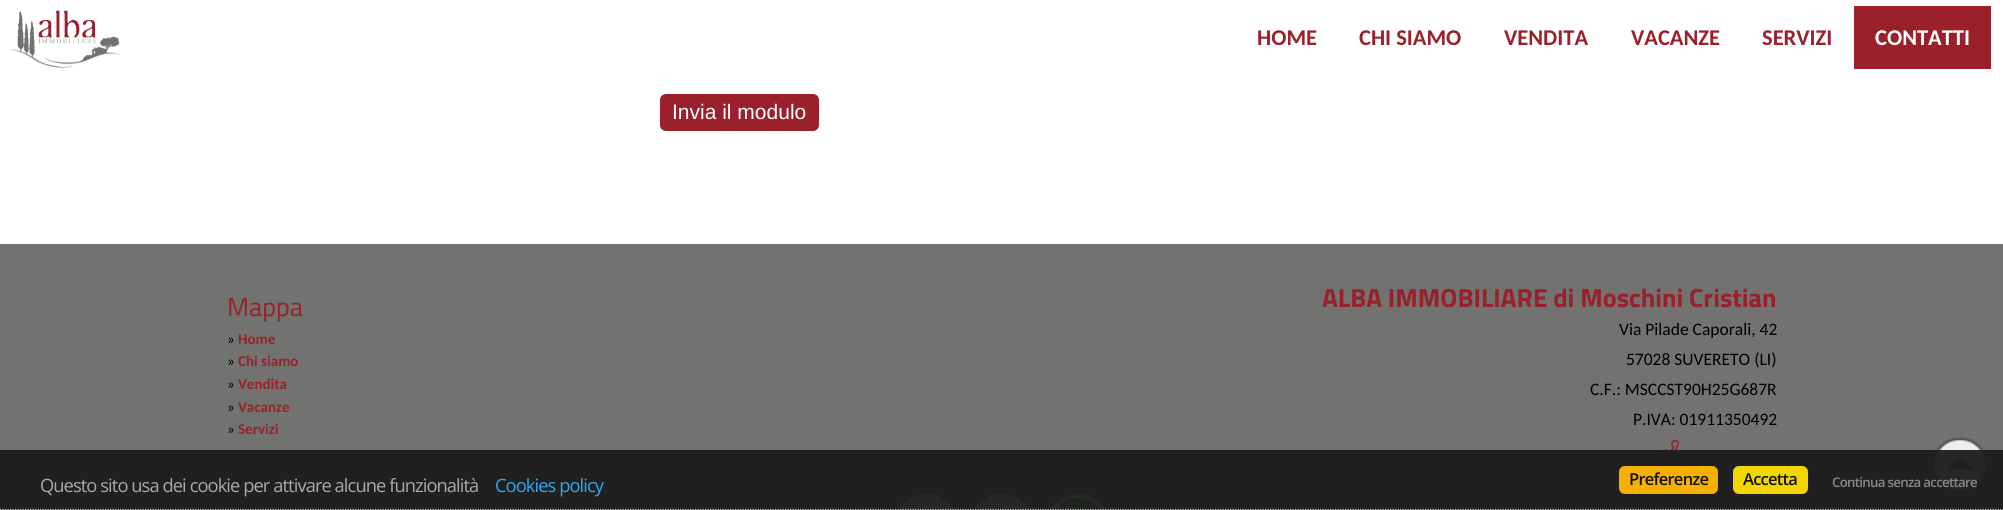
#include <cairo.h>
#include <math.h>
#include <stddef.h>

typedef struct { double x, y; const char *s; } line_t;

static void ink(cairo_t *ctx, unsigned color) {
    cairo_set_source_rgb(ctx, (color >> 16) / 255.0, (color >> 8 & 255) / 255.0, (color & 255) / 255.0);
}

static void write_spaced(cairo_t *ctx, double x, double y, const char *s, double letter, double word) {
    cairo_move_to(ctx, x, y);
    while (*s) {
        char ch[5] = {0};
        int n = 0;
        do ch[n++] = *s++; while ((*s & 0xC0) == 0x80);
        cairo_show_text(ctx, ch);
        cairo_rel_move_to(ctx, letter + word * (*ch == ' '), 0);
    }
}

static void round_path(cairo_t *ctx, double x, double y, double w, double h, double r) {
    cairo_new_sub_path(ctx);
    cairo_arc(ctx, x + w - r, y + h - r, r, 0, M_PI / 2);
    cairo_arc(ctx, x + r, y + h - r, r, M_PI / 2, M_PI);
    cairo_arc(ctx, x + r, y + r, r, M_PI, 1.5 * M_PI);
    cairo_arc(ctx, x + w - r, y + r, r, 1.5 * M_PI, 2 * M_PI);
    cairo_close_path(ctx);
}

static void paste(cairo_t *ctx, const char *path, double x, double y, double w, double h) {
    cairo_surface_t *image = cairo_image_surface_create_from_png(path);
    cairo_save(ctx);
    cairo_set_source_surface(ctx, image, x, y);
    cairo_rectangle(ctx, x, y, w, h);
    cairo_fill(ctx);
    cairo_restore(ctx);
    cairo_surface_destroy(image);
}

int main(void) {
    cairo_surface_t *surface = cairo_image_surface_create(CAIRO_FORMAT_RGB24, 2003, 510);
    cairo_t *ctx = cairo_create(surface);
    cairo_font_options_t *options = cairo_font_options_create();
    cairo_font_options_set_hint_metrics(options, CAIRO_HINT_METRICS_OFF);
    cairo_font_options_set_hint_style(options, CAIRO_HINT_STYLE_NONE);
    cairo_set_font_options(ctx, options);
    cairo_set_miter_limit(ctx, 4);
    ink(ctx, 0xFFFFFF);
    cairo_paint(ctx);
    paste(ctx, "media/1.png", 10, 10, 110, 58);
    cairo_select_font_face(ctx, "Carlito", CAIRO_FONT_SLANT_NORMAL, CAIRO_FONT_WEIGHT_BOLD);
    cairo_set_font_size(ctx, 22.5);
    ink(ctx, 0x9A202B);
    {
        static const line_t items[] = {
            {1257, 45, "HOME"},
            {1359, 45, "CHI SIAMO"},
            {1504, 45, "VENDITA"},
            {1631, 45, "VACANZE"},
            {1762, 45, "SERVIZI"},
        };
        for (size_t i = 0; i < sizeof items / sizeof *items; i++) {
            cairo_move_to(ctx, items[i].x, items[i].y);
            cairo_show_text(ctx, items[i].s);
        }
    }
    cairo_rectangle(ctx, 1854, 6, 137, 63);
    cairo_fill(ctx);
    ink(ctx, 0xFFFFFF);
    cairo_move_to(ctx, 1875, 45);
    cairo_show_text(ctx, "CONTATTI");
    ink(ctx, 0x9A202B);
    round_path(ctx, 660, 94, 159, 37, 6);
    cairo_fill(ctx);
    cairo_select_font_face(ctx, "Liberation Sans", CAIRO_FONT_SLANT_NORMAL, CAIRO_FONT_WEIGHT_NORMAL);
    cairo_set_font_size(ctx, 21);
    ink(ctx, 0xFFFFFF);
    cairo_move_to(ctx, 672, 119);
    cairo_show_text(ctx, "Invia il modulo");
    ink(ctx, 0x727270);
    cairo_rectangle(ctx, 0, 244, 2003, 266);
    cairo_fill(ctx);
    cairo_select_font_face(ctx, "Titillium Web", CAIRO_FONT_SLANT_NORMAL, CAIRO_FONT_WEIGHT_NORMAL);
    cairo_set_font_size(ctx, 26.25);
    ink(ctx, 0x9A202B);
    cairo_move_to(ctx, 227, 316);
    cairo_show_text(ctx, "Mappa");
    cairo_select_font_face(ctx, "Carlito", CAIRO_FONT_SLANT_NORMAL, CAIRO_FONT_WEIGHT_NORMAL);
    cairo_set_font_size(ctx, 15);
    ink(ctx, 0x000000);
    cairo_move_to(ctx, 227, 344);
    cairo_show_text(ctx, "»");
    cairo_select_font_face(ctx, "Carlito", CAIRO_FONT_SLANT_NORMAL, CAIRO_FONT_WEIGHT_BOLD);
    ink(ctx, 0x9A202B);
    cairo_move_to(ctx, 238, 344);
    cairo_show_text(ctx, "Home");
    cairo_select_font_face(ctx, "Carlito", CAIRO_FONT_SLANT_NORMAL, CAIRO_FONT_WEIGHT_NORMAL);
    ink(ctx, 0x000000);
    cairo_move_to(ctx, 227, 366);
    cairo_show_text(ctx, "»");
    cairo_select_font_face(ctx, "Carlito", CAIRO_FONT_SLANT_NORMAL, CAIRO_FONT_WEIGHT_BOLD);
    ink(ctx, 0x9A202B);
    cairo_move_to(ctx, 238, 366);
    cairo_show_text(ctx, "Chi siamo");
    cairo_select_font_face(ctx, "Carlito", CAIRO_FONT_SLANT_NORMAL, CAIRO_FONT_WEIGHT_NORMAL);
    ink(ctx, 0x000000);
    cairo_move_to(ctx, 227, 389);
    cairo_show_text(ctx, "»");
    cairo_select_font_face(ctx, "Carlito", CAIRO_FONT_SLANT_NORMAL, CAIRO_FONT_WEIGHT_BOLD);
    ink(ctx, 0x9A202B);
    cairo_move_to(ctx, 238, 389);
    cairo_show_text(ctx, "Vendita");
    cairo_select_font_face(ctx, "Carlito", CAIRO_FONT_SLANT_NORMAL, CAIRO_FONT_WEIGHT_NORMAL);
    ink(ctx, 0x000000);
    cairo_move_to(ctx, 227, 412);
    cairo_show_text(ctx, "»");
    cairo_select_font_face(ctx, "Carlito", CAIRO_FONT_SLANT_NORMAL, CAIRO_FONT_WEIGHT_BOLD);
    ink(ctx, 0x9A202B);
    cairo_move_to(ctx, 238, 412);
    cairo_show_text(ctx, "Vacanze");
    cairo_select_font_face(ctx, "Carlito", CAIRO_FONT_SLANT_NORMAL, CAIRO_FONT_WEIGHT_NORMAL);
    ink(ctx, 0x000000);
    cairo_move_to(ctx, 227, 434);
    cairo_show_text(ctx, "»");
    cairo_select_font_face(ctx, "Carlito", CAIRO_FONT_SLANT_NORMAL, CAIRO_FONT_WEIGHT_BOLD);
    ink(ctx, 0x9A202B);
    cairo_move_to(ctx, 238, 434);
    cairo_show_text(ctx, "Servizi");
    cairo_select_font_face(ctx, "Titillium Web", CAIRO_FONT_SLANT_NORMAL, CAIRO_FONT_WEIGHT_BOLD);
    cairo_set_font_size(ctx, 26.25);
    cairo_move_to(ctx, 1322, 307);
    cairo_show_text(ctx, "ALBA IMMOBILIARE di Moschini Cristian");
    cairo_select_font_face(ctx, "Carlito", CAIRO_FONT_SLANT_NORMAL, CAIRO_FONT_WEIGHT_NORMAL);
    cairo_set_font_size(ctx, 17.5);
    ink(ctx, 0x000000);
    {
        static const line_t items[] = {
            {1619, 335, "Via Pilade Caporali, 42"},
            {1626, 365, "57028 SUVERETO (LI)"},
            {1590, 395, "C.F.: MSCCST90H25G687R"},
            {1633, 425, "P.IVA: 01911350492"},
        };
        for (size_t i = 0; i < sizeof items / sizeof *items; i++) {
            cairo_move_to(ctx, items[i].x, items[i].y);
            cairo_show_text(ctx, items[i].s);
        }
    }
    paste(ctx, "media/2.png", 1661, 439, 18, 19);
    ink(ctx, 0xFFFFFF);
    round_path(ctx, 894, 494, 64, 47, 31);
    cairo_fill(ctx);
    paste(ctx, "media/3.png", 923, 509, 11, 1);
    round_path(ctx, 970, 494, 64, 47, 31);
    cairo_fill(ctx);
    paste(ctx, "media/4.png", 993, 509, 17, 1);
    round_path(ctx, 1046, 494, 64, 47, 31);
    cairo_fill(ctx);
    paste(ctx, "media/5.png", 1056, 498, 44, 12);
    paste(ctx, "media/6.png", 1931, 438, 57, 57);
    paste(ctx, "media/7.png", 1931, 437, 58, 57);
    cairo_set_source_rgba(ctx, 0.114, 0.114, 0.114, 0.95);
    cairo_rectangle(ctx, 0, 450, 2003, 60);
    cairo_fill(ctx);
    cairo_new_path(ctx);
    cairo_move_to(ctx, 0, 509.5);
    cairo_line_to(ctx, 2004, 509.5);
    ink(ctx, 0xCCCCCC);
    cairo_set_line_width(ctx, 1.2);
    cairo_set_dash(ctx, (double[]){1.25, 1.25}, 2, 0);
    cairo_stroke(ctx);
    cairo_select_font_face(ctx, "Open Sans", CAIRO_FONT_SLANT_NORMAL, CAIRO_FONT_WEIGHT_NORMAL);
    cairo_set_font_size(ctx, 18.3);
    ink(ctx, 0xAAAAAA);
    write_spaced(ctx, 40, 492, "Questo sito usa dei cookie per attivare alcune funzionalità", -0.92, 0);
    ink(ctx, 0x31A8F0);
    write_spaced(ctx, 495, 492, "Cookies policy", -0.92, 0);
    ink(ctx, 0xF4B100);
    round_path(ctx, 1619, 466, 99, 28, 6);
    cairo_fill(ctx);
    cairo_select_font_face(ctx, "Open Sans SemiBold", CAIRO_FONT_SLANT_NORMAL, CAIRO_FONT_WEIGHT_NORMAL);
    cairo_set_font_size(ctx, 16.5);
    ink(ctx, 0x111111);
    write_spaced(ctx, 1629, 485, "Preferenze", -0.75, 0);
    ink(ctx, 0xF1D600);
    round_path(ctx, 1733, 466, 75, 28, 6);
    cairo_fill(ctx);
    ink(ctx, 0x111111);
    write_spaced(ctx, 1743, 485, "Accetta", -0.75, 0);
    cairo_set_font_size(ctx, 13.25);
    ink(ctx, 0x888888);
    write_spaced(ctx, 1832, 487, "Continua senza accettare", -0.7, 0);
    cairo_surface_write_to_png(surface, "image.png");
    cairo_font_options_destroy(options);
    cairo_destroy(ctx);
    cairo_surface_destroy(surface);
    return 0;
}
